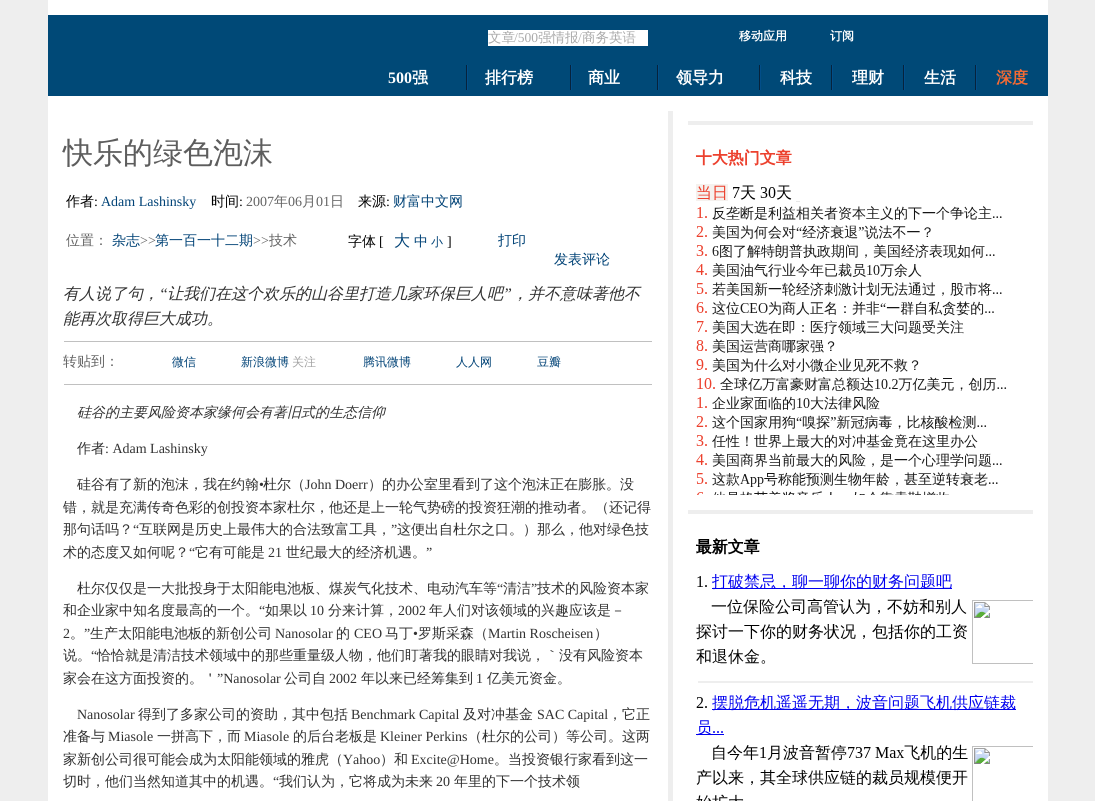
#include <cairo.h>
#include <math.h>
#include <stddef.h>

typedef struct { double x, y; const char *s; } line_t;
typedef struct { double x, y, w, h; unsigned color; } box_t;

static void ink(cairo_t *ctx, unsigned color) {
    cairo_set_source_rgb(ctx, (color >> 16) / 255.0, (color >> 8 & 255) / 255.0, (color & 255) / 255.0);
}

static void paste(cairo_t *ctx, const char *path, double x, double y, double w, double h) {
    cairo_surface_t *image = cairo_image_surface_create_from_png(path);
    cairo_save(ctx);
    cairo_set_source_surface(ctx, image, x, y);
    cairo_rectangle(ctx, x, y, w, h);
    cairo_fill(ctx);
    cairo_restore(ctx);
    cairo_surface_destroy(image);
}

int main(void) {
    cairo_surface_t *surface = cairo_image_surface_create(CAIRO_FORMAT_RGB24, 1095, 801);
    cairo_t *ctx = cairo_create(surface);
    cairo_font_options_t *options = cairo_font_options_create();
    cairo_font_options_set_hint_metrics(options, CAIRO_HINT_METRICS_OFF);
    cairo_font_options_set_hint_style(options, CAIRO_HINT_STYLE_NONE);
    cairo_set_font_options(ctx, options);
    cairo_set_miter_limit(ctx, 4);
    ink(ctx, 0xEEEEEE);
    cairo_paint(ctx);
    {
        static const box_t items[] = {
            {48, 0, 1000, 15, 0xFFFFFF},
            {48, 15, 1000, 81, 0x004977},
            {488, 30, 160, 16, 0xFFFFFF},
        };
        for (size_t i = 0; i < sizeof items / sizeof *items; i++) {
            ink(ctx, items[i].color);
            cairo_rectangle(ctx, items[i].x, items[i].y, items[i].w, items[i].h);
            cairo_fill(ctx);
        }
    }
    cairo_select_font_face(ctx, "WenQuanYi Zen Hei Medium", CAIRO_FONT_SLANT_NORMAL, CAIRO_FONT_WEIGHT_NORMAL);
    cairo_set_font_size(ctx, 13.5);
    ink(ctx, 0xAAAAAA);
    cairo_move_to(ctx, 488, 42);
    cairo_show_text(ctx, "文章");
    cairo_select_font_face(ctx, "Liberation Serif", CAIRO_FONT_SLANT_NORMAL, CAIRO_FONT_WEIGHT_NORMAL);
    cairo_move_to(ctx, 514, 42);
    cairo_show_text(ctx, "/500");
    cairo_select_font_face(ctx, "WenQuanYi Zen Hei Medium", CAIRO_FONT_SLANT_NORMAL, CAIRO_FONT_WEIGHT_NORMAL);
    cairo_move_to(ctx, 538, 42);
    cairo_show_text(ctx, "强情报");
    cairo_select_font_face(ctx, "Liberation Serif", CAIRO_FONT_SLANT_NORMAL, CAIRO_FONT_WEIGHT_NORMAL);
    cairo_move_to(ctx, 578, 42);
    cairo_show_text(ctx, "/");
    cairo_select_font_face(ctx, "WenQuanYi Zen Hei Medium", CAIRO_FONT_SLANT_NORMAL, CAIRO_FONT_WEIGHT_NORMAL);
    cairo_move_to(ctx, 582, 42);
    cairo_show_text(ctx, "商务英语");
    cairo_select_font_face(ctx, "WenQuanYi Zen Hei", CAIRO_FONT_SLANT_NORMAL, CAIRO_FONT_WEIGHT_BOLD);
    cairo_set_font_size(ctx, 12);
    ink(ctx, 0xFFFFFF);
    cairo_move_to(ctx, 739, 40);
    cairo_show_text(ctx, "移动应用");
    cairo_move_to(ctx, 830, 40);
    cairo_show_text(ctx, "订阅");
    ink(ctx, 0x06233C);
    cairo_rectangle(ctx, 466, 65, 1, 25);
    cairo_fill(ctx);
    cairo_select_font_face(ctx, "Liberation Serif", CAIRO_FONT_SLANT_NORMAL, CAIRO_FONT_WEIGHT_BOLD);
    cairo_set_font_size(ctx, 16);
    ink(ctx, 0xFFFFFF);
    cairo_move_to(ctx, 388, 83);
    cairo_show_text(ctx, "500");
    cairo_select_font_face(ctx, "WenQuanYi Zen Hei", CAIRO_FONT_SLANT_NORMAL, CAIRO_FONT_WEIGHT_BOLD);
    cairo_move_to(ctx, 412, 83);
    cairo_show_text(ctx, "强");
    ink(ctx, 0x06233C);
    cairo_rectangle(ctx, 570, 65, 1, 25);
    cairo_fill(ctx);
    ink(ctx, 0x024E89);
    cairo_rectangle(ctx, 467, 65, 1, 25);
    cairo_fill(ctx);
    ink(ctx, 0xFFFFFF);
    cairo_move_to(ctx, 485, 83);
    cairo_show_text(ctx, "排行榜");
    ink(ctx, 0x06233C);
    cairo_rectangle(ctx, 657, 65, 1, 25);
    cairo_fill(ctx);
    ink(ctx, 0x024E89);
    cairo_rectangle(ctx, 571, 65, 1, 25);
    cairo_fill(ctx);
    ink(ctx, 0xFFFFFF);
    cairo_move_to(ctx, 588, 83);
    cairo_show_text(ctx, "商业");
    ink(ctx, 0x06233C);
    cairo_rectangle(ctx, 759, 65, 1, 25);
    cairo_fill(ctx);
    ink(ctx, 0x024E89);
    cairo_rectangle(ctx, 658, 65, 1, 25);
    cairo_fill(ctx);
    ink(ctx, 0xFFFFFF);
    cairo_move_to(ctx, 676, 83);
    cairo_show_text(ctx, "领导力");
    ink(ctx, 0x06233C);
    cairo_rectangle(ctx, 831, 65, 1, 25);
    cairo_fill(ctx);
    ink(ctx, 0x024E89);
    cairo_rectangle(ctx, 760, 65, 1, 25);
    cairo_fill(ctx);
    ink(ctx, 0xFFFFFF);
    cairo_move_to(ctx, 780, 83);
    cairo_show_text(ctx, "科技");
    ink(ctx, 0x06233C);
    cairo_rectangle(ctx, 903, 65, 1, 25);
    cairo_fill(ctx);
    ink(ctx, 0x024E89);
    cairo_rectangle(ctx, 832, 65, 1, 25);
    cairo_fill(ctx);
    ink(ctx, 0xFFFFFF);
    cairo_move_to(ctx, 852, 83);
    cairo_show_text(ctx, "理财");
    ink(ctx, 0x06233C);
    cairo_rectangle(ctx, 975, 65, 1, 25);
    cairo_fill(ctx);
    ink(ctx, 0x024E89);
    cairo_rectangle(ctx, 904, 65, 1, 25);
    cairo_fill(ctx);
    ink(ctx, 0xFFFFFF);
    cairo_move_to(ctx, 924, 83);
    cairo_show_text(ctx, "生活");
    ink(ctx, 0x024E89);
    cairo_rectangle(ctx, 976, 65, 1, 25);
    cairo_fill(ctx);
    ink(ctx, 0xF76B33);
    cairo_move_to(ctx, 996, 83);
    cairo_show_text(ctx, "深度");
    ink(ctx, 0xFFFFFF);
    cairo_rectangle(ctx, 48, 96, 1000, 705);
    cairo_fill(ctx);
    cairo_select_font_face(ctx, "WenQuanYi Zen Hei Medium", CAIRO_FONT_SLANT_NORMAL, CAIRO_FONT_WEIGHT_NORMAL);
    cairo_set_font_size(ctx, 30);
    ink(ctx, 0x5D5D5D);
    cairo_move_to(ctx, 63, 163);
    cairo_show_text(ctx, "快乐的绿色泡沫");
    cairo_set_font_size(ctx, 14);
    ink(ctx, 0x000000);
    cairo_move_to(ctx, 66, 206);
    cairo_show_text(ctx, "作者");
    cairo_select_font_face(ctx, "Liberation Serif", CAIRO_FONT_SLANT_NORMAL, CAIRO_FONT_WEIGHT_NORMAL);
    cairo_move_to(ctx, 94, 206);
    cairo_show_text(ctx, ":");
    ink(ctx, 0x004276);
    cairo_move_to(ctx, 101, 206);
    cairo_show_text(ctx, "Adam Lashinsky");
    cairo_select_font_face(ctx, "WenQuanYi Zen Hei Medium", CAIRO_FONT_SLANT_NORMAL, CAIRO_FONT_WEIGHT_NORMAL);
    ink(ctx, 0x000000);
    cairo_move_to(ctx, 211, 206);
    cairo_show_text(ctx, "时间");
    cairo_select_font_face(ctx, "Liberation Serif", CAIRO_FONT_SLANT_NORMAL, CAIRO_FONT_WEIGHT_NORMAL);
    cairo_move_to(ctx, 239, 206);
    cairo_show_text(ctx, ":");
    ink(ctx, 0x646464);
    cairo_move_to(ctx, 246, 206);
    cairo_show_text(ctx, "2007");
    cairo_select_font_face(ctx, "WenQuanYi Zen Hei Medium", CAIRO_FONT_SLANT_NORMAL, CAIRO_FONT_WEIGHT_NORMAL);
    cairo_move_to(ctx, 274, 206);
    cairo_show_text(ctx, "年");
    cairo_select_font_face(ctx, "Liberation Serif", CAIRO_FONT_SLANT_NORMAL, CAIRO_FONT_WEIGHT_NORMAL);
    cairo_move_to(ctx, 288, 206);
    cairo_show_text(ctx, "06");
    cairo_select_font_face(ctx, "WenQuanYi Zen Hei Medium", CAIRO_FONT_SLANT_NORMAL, CAIRO_FONT_WEIGHT_NORMAL);
    cairo_move_to(ctx, 302, 206);
    cairo_show_text(ctx, "月");
    cairo_select_font_face(ctx, "Liberation Serif", CAIRO_FONT_SLANT_NORMAL, CAIRO_FONT_WEIGHT_NORMAL);
    cairo_move_to(ctx, 316, 206);
    cairo_show_text(ctx, "01");
    cairo_select_font_face(ctx, "WenQuanYi Zen Hei Medium", CAIRO_FONT_SLANT_NORMAL, CAIRO_FONT_WEIGHT_NORMAL);
    cairo_move_to(ctx, 330, 206);
    cairo_show_text(ctx, "日");
    ink(ctx, 0x000000);
    cairo_move_to(ctx, 358, 206);
    cairo_show_text(ctx, "来源");
    cairo_select_font_face(ctx, "Liberation Serif", CAIRO_FONT_SLANT_NORMAL, CAIRO_FONT_WEIGHT_NORMAL);
    cairo_move_to(ctx, 386, 206);
    cairo_show_text(ctx, ":");
    cairo_select_font_face(ctx, "WenQuanYi Zen Hei Medium", CAIRO_FONT_SLANT_NORMAL, CAIRO_FONT_WEIGHT_NORMAL);
    ink(ctx, 0x004276);
    cairo_move_to(ctx, 393, 206);
    cairo_show_text(ctx, "财富中文网");
    ink(ctx, 0x646464);
    cairo_move_to(ctx, 66, 245);
    cairo_show_text(ctx, "位置：");
    ink(ctx, 0x004276);
    cairo_move_to(ctx, 112, 245);
    cairo_show_text(ctx, "杂志");
    cairo_select_font_face(ctx, "Liberation Serif", CAIRO_FONT_SLANT_NORMAL, CAIRO_FONT_WEIGHT_NORMAL);
    ink(ctx, 0x646464);
    cairo_move_to(ctx, 140, 245);
    cairo_show_text(ctx, ">>");
    cairo_select_font_face(ctx, "WenQuanYi Zen Hei Medium", CAIRO_FONT_SLANT_NORMAL, CAIRO_FONT_WEIGHT_NORMAL);
    ink(ctx, 0x004276);
    cairo_move_to(ctx, 155, 245);
    cairo_show_text(ctx, "第一百一十二期");
    cairo_select_font_face(ctx, "Liberation Serif", CAIRO_FONT_SLANT_NORMAL, CAIRO_FONT_WEIGHT_NORMAL);
    ink(ctx, 0x646464);
    cairo_move_to(ctx, 253, 245);
    cairo_show_text(ctx, ">>");
    cairo_select_font_face(ctx, "WenQuanYi Zen Hei Medium", CAIRO_FONT_SLANT_NORMAL, CAIRO_FONT_WEIGHT_NORMAL);
    cairo_move_to(ctx, 269, 245);
    cairo_show_text(ctx, "技术");
    ink(ctx, 0x000000);
    cairo_move_to(ctx, 348, 246);
    cairo_show_text(ctx, "字体");
    cairo_select_font_face(ctx, "Liberation Serif", CAIRO_FONT_SLANT_NORMAL, CAIRO_FONT_WEIGHT_NORMAL);
    cairo_move_to(ctx, 379, 246);
    cairo_show_text(ctx, "[");
    cairo_select_font_face(ctx, "WenQuanYi Zen Hei Medium", CAIRO_FONT_SLANT_NORMAL, CAIRO_FONT_WEIGHT_NORMAL);
    cairo_set_font_size(ctx, 16);
    ink(ctx, 0x004276);
    cairo_move_to(ctx, 394, 246);
    cairo_show_text(ctx, "大");
    cairo_set_font_size(ctx, 14);
    cairo_move_to(ctx, 414, 246);
    cairo_show_text(ctx, "中");
    cairo_set_font_size(ctx, 12);
    cairo_move_to(ctx, 431, 246);
    cairo_show_text(ctx, "小");
    cairo_select_font_face(ctx, "Liberation Serif", CAIRO_FONT_SLANT_NORMAL, CAIRO_FONT_WEIGHT_NORMAL);
    cairo_set_font_size(ctx, 14);
    ink(ctx, 0x000000);
    cairo_move_to(ctx, 447, 246);
    cairo_show_text(ctx, "]");
    cairo_select_font_face(ctx, "WenQuanYi Zen Hei Medium", CAIRO_FONT_SLANT_NORMAL, CAIRO_FONT_WEIGHT_NORMAL);
    ink(ctx, 0x004276);
    cairo_move_to(ctx, 498, 245);
    cairo_show_text(ctx, "打印");
    cairo_move_to(ctx, 554, 264);
    cairo_show_text(ctx, "发表评论");
    cairo_select_font_face(ctx, "WenQuanYi Zen Hei Medium", CAIRO_FONT_SLANT_ITALIC, CAIRO_FONT_WEIGHT_NORMAL);
    cairo_set_font_size(ctx, 16);
    ink(ctx, 0x313131);
    cairo_move_to(ctx, 63, 299);
    cairo_show_text(ctx, "有人说了句，");
    cairo_select_font_face(ctx, "Liberation Serif", CAIRO_FONT_SLANT_ITALIC, CAIRO_FONT_WEIGHT_NORMAL);
    cairo_move_to(ctx, 159, 299);
    cairo_show_text(ctx, "“");
    cairo_select_font_face(ctx, "WenQuanYi Zen Hei Medium", CAIRO_FONT_SLANT_ITALIC, CAIRO_FONT_WEIGHT_NORMAL);
    cairo_move_to(ctx, 167, 299);
    cairo_show_text(ctx, "让我们在这个欢乐的山谷里打造几家环保巨人吧");
    cairo_select_font_face(ctx, "Liberation Serif", CAIRO_FONT_SLANT_ITALIC, CAIRO_FONT_WEIGHT_NORMAL);
    cairo_move_to(ctx, 503, 299);
    cairo_show_text(ctx, "”");
    cairo_select_font_face(ctx, "WenQuanYi Zen Hei Medium", CAIRO_FONT_SLANT_ITALIC, CAIRO_FONT_WEIGHT_NORMAL);
    cairo_move_to(ctx, 512, 299);
    cairo_show_text(ctx, "，并不意味著他不");
    cairo_move_to(ctx, 63, 324);
    cairo_show_text(ctx, "能再次取得巨大成功。");
    ink(ctx, 0xC0C0C0);
    cairo_rectangle(ctx, 64, 341, 588, 1);
    cairo_fill(ctx);
    cairo_select_font_face(ctx, "WenQuanYi Zen Hei Medium", CAIRO_FONT_SLANT_NORMAL, CAIRO_FONT_WEIGHT_NORMAL);
    cairo_set_font_size(ctx, 14);
    ink(ctx, 0x646464);
    cairo_move_to(ctx, 63, 366);
    cairo_show_text(ctx, "转贴到：");
    cairo_set_font_size(ctx, 12);
    ink(ctx, 0x004276);
    cairo_move_to(ctx, 172, 366);
    cairo_show_text(ctx, "微信");
    cairo_move_to(ctx, 241, 366);
    cairo_show_text(ctx, "新浪微博");
    ink(ctx, 0xA2A2A2);
    cairo_move_to(ctx, 292, 366);
    cairo_show_text(ctx, "关注");
    ink(ctx, 0x004276);
    {
        static const line_t items[] = {
            {363, 366, "腾讯微博"},
            {456, 366, "人人网"},
            {537, 366, "豆瓣"},
        };
        for (size_t i = 0; i < sizeof items / sizeof *items; i++) {
            cairo_move_to(ctx, items[i].x, items[i].y);
            cairo_show_text(ctx, items[i].s);
        }
    }
    {
        static const box_t items[] = {
            {171, 359, 1, 5, 0xFFFFFF},
            {240, 366, 1, 1, 0xFFFFFF},
            {455, 366, 1, 2, 0xFFFFFF},
            {536, 365, 1, 2, 0xFFFFFF},
            {64, 384, 588, 1, 0xC0C0C0},
        };
        for (size_t i = 0; i < sizeof items / sizeof *items; i++) {
            ink(ctx, items[i].color);
            cairo_rectangle(ctx, items[i].x, items[i].y, items[i].w, items[i].h);
            cairo_fill(ctx);
        }
    }
    cairo_select_font_face(ctx, "WenQuanYi Zen Hei Medium", CAIRO_FONT_SLANT_ITALIC, CAIRO_FONT_WEIGHT_NORMAL);
    cairo_set_font_size(ctx, 14);
    ink(ctx, 0x313131);
    cairo_move_to(ctx, 77, 417);
    cairo_show_text(ctx, "硅谷的主要风险资本家缘何会有著旧式的生态信仰");
    cairo_select_font_face(ctx, "WenQuanYi Zen Hei Medium", CAIRO_FONT_SLANT_NORMAL, CAIRO_FONT_WEIGHT_NORMAL);
    cairo_move_to(ctx, 77, 453);
    cairo_show_text(ctx, "作者");
    cairo_select_font_face(ctx, "Liberation Serif", CAIRO_FONT_SLANT_NORMAL, CAIRO_FONT_WEIGHT_NORMAL);
    cairo_move_to(ctx, 105, 453);
    cairo_show_text(ctx, ": Adam Lashinsky");
    cairo_select_font_face(ctx, "WenQuanYi Zen Hei Medium", CAIRO_FONT_SLANT_NORMAL, CAIRO_FONT_WEIGHT_NORMAL);
    cairo_move_to(ctx, 77, 489);
    cairo_show_text(ctx, "硅谷有了新的泡沫，我在约翰");
    cairo_select_font_face(ctx, "Liberation Serif", CAIRO_FONT_SLANT_NORMAL, CAIRO_FONT_WEIGHT_NORMAL);
    cairo_move_to(ctx, 259, 489);
    cairo_show_text(ctx, "•");
    cairo_select_font_face(ctx, "WenQuanYi Zen Hei Medium", CAIRO_FONT_SLANT_NORMAL, CAIRO_FONT_WEIGHT_NORMAL);
    cairo_move_to(ctx, 263, 489);
    cairo_show_text(ctx, "杜尔（");
    cairo_select_font_face(ctx, "Liberation Serif", CAIRO_FONT_SLANT_NORMAL, CAIRO_FONT_WEIGHT_NORMAL);
    cairo_move_to(ctx, 305, 489);
    cairo_show_text(ctx, "John Doerr");
    cairo_select_font_face(ctx, "WenQuanYi Zen Hei Medium", CAIRO_FONT_SLANT_NORMAL, CAIRO_FONT_WEIGHT_NORMAL);
    {
        static const line_t items[] = {
            {368, 489, "）的办公室里看到了这个泡沫正在膨胀。没"},
            {63, 512, "错，就是充满传奇色彩的创投资本家杜尔，他还是上一轮气势磅的投资狂潮的推动者。（还记得"},
            {63, 534, "那句话吗？"},
        };
        for (size_t i = 0; i < sizeof items / sizeof *items; i++) {
            cairo_move_to(ctx, items[i].x, items[i].y);
            cairo_show_text(ctx, items[i].s);
        }
    }
    cairo_select_font_face(ctx, "Liberation Serif", CAIRO_FONT_SLANT_NORMAL, CAIRO_FONT_WEIGHT_NORMAL);
    cairo_move_to(ctx, 133, 534);
    cairo_show_text(ctx, "“");
    cairo_select_font_face(ctx, "WenQuanYi Zen Hei Medium", CAIRO_FONT_SLANT_NORMAL, CAIRO_FONT_WEIGHT_NORMAL);
    cairo_move_to(ctx, 139, 534);
    cairo_show_text(ctx, "互联网是历史上最伟大的合法致富工具，");
    cairo_select_font_face(ctx, "Liberation Serif", CAIRO_FONT_SLANT_NORMAL, CAIRO_FONT_WEIGHT_NORMAL);
    cairo_move_to(ctx, 391, 534);
    cairo_show_text(ctx, "”");
    cairo_select_font_face(ctx, "WenQuanYi Zen Hei Medium", CAIRO_FONT_SLANT_NORMAL, CAIRO_FONT_WEIGHT_NORMAL);
    cairo_move_to(ctx, 397, 534);
    cairo_show_text(ctx, "这便出自杜尔之口。）那么，他对绿色技");
    cairo_move_to(ctx, 63, 557);
    cairo_show_text(ctx, "术的态度又如何呢？");
    cairo_select_font_face(ctx, "Liberation Serif", CAIRO_FONT_SLANT_NORMAL, CAIRO_FONT_WEIGHT_NORMAL);
    cairo_move_to(ctx, 189, 557);
    cairo_show_text(ctx, "“");
    cairo_select_font_face(ctx, "WenQuanYi Zen Hei Medium", CAIRO_FONT_SLANT_NORMAL, CAIRO_FONT_WEIGHT_NORMAL);
    cairo_move_to(ctx, 195, 557);
    cairo_show_text(ctx, "它有可能是");
    cairo_select_font_face(ctx, "Liberation Serif", CAIRO_FONT_SLANT_NORMAL, CAIRO_FONT_WEIGHT_NORMAL);
    cairo_move_to(ctx, 268, 557);
    cairo_show_text(ctx, "21");
    cairo_select_font_face(ctx, "WenQuanYi Zen Hei Medium", CAIRO_FONT_SLANT_NORMAL, CAIRO_FONT_WEIGHT_NORMAL);
    cairo_move_to(ctx, 286, 557);
    cairo_show_text(ctx, "世纪最大的经济机遇。");
    cairo_select_font_face(ctx, "Liberation Serif", CAIRO_FONT_SLANT_NORMAL, CAIRO_FONT_WEIGHT_NORMAL);
    cairo_move_to(ctx, 426, 557);
    cairo_show_text(ctx, "”");
    cairo_select_font_face(ctx, "WenQuanYi Zen Hei Medium", CAIRO_FONT_SLANT_NORMAL, CAIRO_FONT_WEIGHT_NORMAL);
    cairo_move_to(ctx, 77, 593);
    cairo_show_text(ctx, "杜尔仅仅是一大批投身于太阳能电池板、煤炭气化技术、电动汽车等");
    cairo_select_font_face(ctx, "Liberation Serif", CAIRO_FONT_SLANT_NORMAL, CAIRO_FONT_WEIGHT_NORMAL);
    cairo_move_to(ctx, 497, 593);
    cairo_show_text(ctx, "“");
    cairo_select_font_face(ctx, "WenQuanYi Zen Hei Medium", CAIRO_FONT_SLANT_NORMAL, CAIRO_FONT_WEIGHT_NORMAL);
    cairo_move_to(ctx, 503, 593);
    cairo_show_text(ctx, "清洁");
    cairo_select_font_face(ctx, "Liberation Serif", CAIRO_FONT_SLANT_NORMAL, CAIRO_FONT_WEIGHT_NORMAL);
    cairo_move_to(ctx, 531, 593);
    cairo_show_text(ctx, "”");
    cairo_select_font_face(ctx, "WenQuanYi Zen Hei Medium", CAIRO_FONT_SLANT_NORMAL, CAIRO_FONT_WEIGHT_NORMAL);
    cairo_move_to(ctx, 537, 593);
    cairo_show_text(ctx, "技术的风险资本家");
    cairo_move_to(ctx, 63, 615);
    cairo_show_text(ctx, "和企业家中知名度最高的一个。");
    cairo_select_font_face(ctx, "Liberation Serif", CAIRO_FONT_SLANT_NORMAL, CAIRO_FONT_WEIGHT_NORMAL);
    cairo_move_to(ctx, 259, 615);
    cairo_show_text(ctx, "“");
    cairo_select_font_face(ctx, "WenQuanYi Zen Hei Medium", CAIRO_FONT_SLANT_NORMAL, CAIRO_FONT_WEIGHT_NORMAL);
    cairo_move_to(ctx, 265, 615);
    cairo_show_text(ctx, "如果以");
    cairo_select_font_face(ctx, "Liberation Serif", CAIRO_FONT_SLANT_NORMAL, CAIRO_FONT_WEIGHT_NORMAL);
    cairo_move_to(ctx, 310, 615);
    cairo_show_text(ctx, "10");
    cairo_select_font_face(ctx, "WenQuanYi Zen Hei Medium", CAIRO_FONT_SLANT_NORMAL, CAIRO_FONT_WEIGHT_NORMAL);
    cairo_move_to(ctx, 328, 615);
    cairo_show_text(ctx, "分来计算，");
    cairo_select_font_face(ctx, "Liberation Serif", CAIRO_FONT_SLANT_NORMAL, CAIRO_FONT_WEIGHT_NORMAL);
    cairo_move_to(ctx, 398, 615);
    cairo_show_text(ctx, "2002");
    cairo_select_font_face(ctx, "WenQuanYi Zen Hei Medium", CAIRO_FONT_SLANT_NORMAL, CAIRO_FONT_WEIGHT_NORMAL);
    cairo_move_to(ctx, 429, 615);
    cairo_show_text(ctx, "年人们对该领域的兴趣应该是－");
    cairo_select_font_face(ctx, "Liberation Serif", CAIRO_FONT_SLANT_NORMAL, CAIRO_FONT_WEIGHT_NORMAL);
    cairo_move_to(ctx, 63, 638);
    cairo_show_text(ctx, "2");
    cairo_move_to(ctx, 84, 638);
    cairo_show_text(ctx, "”");
    cairo_select_font_face(ctx, "WenQuanYi Zen Hei Medium", CAIRO_FONT_SLANT_NORMAL, CAIRO_FONT_WEIGHT_NORMAL);
    cairo_move_to(ctx, 90, 638);
    cairo_show_text(ctx, "生产太阳能电池板的新创公司");
    cairo_select_font_face(ctx, "Liberation Serif", CAIRO_FONT_SLANT_NORMAL, CAIRO_FONT_WEIGHT_NORMAL);
    cairo_move_to(ctx, 275, 638);
    cairo_show_text(ctx, "Nanosolar");
    cairo_select_font_face(ctx, "WenQuanYi Zen Hei Medium", CAIRO_FONT_SLANT_NORMAL, CAIRO_FONT_WEIGHT_NORMAL);
    cairo_move_to(ctx, 336, 638);
    cairo_show_text(ctx, "的");
    cairo_select_font_face(ctx, "Liberation Serif", CAIRO_FONT_SLANT_NORMAL, CAIRO_FONT_WEIGHT_NORMAL);
    cairo_move_to(ctx, 354, 638);
    cairo_show_text(ctx, "CEO");
    cairo_select_font_face(ctx, "WenQuanYi Zen Hei Medium", CAIRO_FONT_SLANT_NORMAL, CAIRO_FONT_WEIGHT_NORMAL);
    cairo_move_to(ctx, 385, 638);
    cairo_show_text(ctx, "马丁");
    cairo_select_font_face(ctx, "Liberation Serif", CAIRO_FONT_SLANT_NORMAL, CAIRO_FONT_WEIGHT_NORMAL);
    cairo_move_to(ctx, 413, 638);
    cairo_show_text(ctx, "•");
    cairo_select_font_face(ctx, "WenQuanYi Zen Hei Medium", CAIRO_FONT_SLANT_NORMAL, CAIRO_FONT_WEIGHT_NORMAL);
    cairo_move_to(ctx, 418, 638);
    cairo_show_text(ctx, "罗斯采森（");
    cairo_select_font_face(ctx, "Liberation Serif", CAIRO_FONT_SLANT_NORMAL, CAIRO_FONT_WEIGHT_NORMAL);
    cairo_move_to(ctx, 488, 638);
    cairo_show_text(ctx, "Martin Roscheisen");
    cairo_select_font_face(ctx, "WenQuanYi Zen Hei Medium", CAIRO_FONT_SLANT_NORMAL, CAIRO_FONT_WEIGHT_NORMAL);
    {
        static const line_t items[] = {
            {594, 638, "）"},
            {70, 638, "。"},
            {63, 660, "说。"},
        };
        for (size_t i = 0; i < sizeof items / sizeof *items; i++) {
            cairo_move_to(ctx, items[i].x, items[i].y);
            cairo_show_text(ctx, items[i].s);
        }
    }
    cairo_select_font_face(ctx, "Liberation Serif", CAIRO_FONT_SLANT_NORMAL, CAIRO_FONT_WEIGHT_NORMAL);
    cairo_move_to(ctx, 91, 660);
    cairo_show_text(ctx, "“");
    cairo_select_font_face(ctx, "WenQuanYi Zen Hei Medium", CAIRO_FONT_SLANT_NORMAL, CAIRO_FONT_WEIGHT_NORMAL);
    cairo_move_to(ctx, 97, 660);
    cairo_show_text(ctx, "恰恰就是清洁技术领域中的那些重量级人物，他们盯著我的眼睛对我说，｀没有风险资本");
    cairo_move_to(ctx, 63, 683);
    cairo_show_text(ctx, "家会在这方面投资的。＇");
    cairo_select_font_face(ctx, "Liberation Serif", CAIRO_FONT_SLANT_NORMAL, CAIRO_FONT_WEIGHT_NORMAL);
    cairo_move_to(ctx, 217, 683);
    cairo_show_text(ctx, "”Nanosolar");
    cairo_select_font_face(ctx, "WenQuanYi Zen Hei Medium", CAIRO_FONT_SLANT_NORMAL, CAIRO_FONT_WEIGHT_NORMAL);
    cairo_move_to(ctx, 284, 683);
    cairo_show_text(ctx, "公司自");
    cairo_select_font_face(ctx, "Liberation Serif", CAIRO_FONT_SLANT_NORMAL, CAIRO_FONT_WEIGHT_NORMAL);
    cairo_move_to(ctx, 329, 683);
    cairo_show_text(ctx, "2002");
    cairo_select_font_face(ctx, "WenQuanYi Zen Hei Medium", CAIRO_FONT_SLANT_NORMAL, CAIRO_FONT_WEIGHT_NORMAL);
    cairo_move_to(ctx, 361, 683);
    cairo_show_text(ctx, "年以来已经筹集到");
    cairo_select_font_face(ctx, "Liberation Serif", CAIRO_FONT_SLANT_NORMAL, CAIRO_FONT_WEIGHT_NORMAL);
    cairo_move_to(ctx, 476, 683);
    cairo_show_text(ctx, "1");
    cairo_select_font_face(ctx, "WenQuanYi Zen Hei Medium", CAIRO_FONT_SLANT_NORMAL, CAIRO_FONT_WEIGHT_NORMAL);
    cairo_move_to(ctx, 487, 683);
    cairo_show_text(ctx, "亿美元资金。");
    cairo_select_font_face(ctx, "Liberation Serif", CAIRO_FONT_SLANT_NORMAL, CAIRO_FONT_WEIGHT_NORMAL);
    cairo_move_to(ctx, 77, 719);
    cairo_show_text(ctx, "Nanosolar");
    cairo_select_font_face(ctx, "WenQuanYi Zen Hei Medium", CAIRO_FONT_SLANT_NORMAL, CAIRO_FONT_WEIGHT_NORMAL);
    cairo_move_to(ctx, 138, 719);
    cairo_show_text(ctx, "得到了多家公司的资助，其中包括");
    cairo_select_font_face(ctx, "Liberation Serif", CAIRO_FONT_SLANT_NORMAL, CAIRO_FONT_WEIGHT_NORMAL);
    cairo_move_to(ctx, 351, 719);
    cairo_show_text(ctx, "Benchmark Capital");
    cairo_select_font_face(ctx, "WenQuanYi Zen Hei Medium", CAIRO_FONT_SLANT_NORMAL, CAIRO_FONT_WEIGHT_NORMAL);
    cairo_move_to(ctx, 463, 719);
    cairo_show_text(ctx, "及对冲基金");
    cairo_select_font_face(ctx, "Liberation Serif", CAIRO_FONT_SLANT_NORMAL, CAIRO_FONT_WEIGHT_NORMAL);
    cairo_move_to(ctx, 537, 719);
    cairo_show_text(ctx, "SAC Capital");
    cairo_select_font_face(ctx, "WenQuanYi Zen Hei Medium", CAIRO_FONT_SLANT_NORMAL, CAIRO_FONT_WEIGHT_NORMAL);
    cairo_move_to(ctx, 608, 719);
    cairo_show_text(ctx, "，它正");
    cairo_move_to(ctx, 63, 741);
    cairo_show_text(ctx, "准备与");
    cairo_select_font_face(ctx, "Liberation Serif", CAIRO_FONT_SLANT_NORMAL, CAIRO_FONT_WEIGHT_NORMAL);
    cairo_move_to(ctx, 108, 741);
    cairo_show_text(ctx, "Miasole");
    cairo_select_font_face(ctx, "WenQuanYi Zen Hei Medium", CAIRO_FONT_SLANT_NORMAL, CAIRO_FONT_WEIGHT_NORMAL);
    cairo_move_to(ctx, 157, 741);
    cairo_show_text(ctx, "一拼高下，而");
    cairo_select_font_face(ctx, "Liberation Serif", CAIRO_FONT_SLANT_NORMAL, CAIRO_FONT_WEIGHT_NORMAL);
    cairo_move_to(ctx, 244, 741);
    cairo_show_text(ctx, "Miasole");
    cairo_select_font_face(ctx, "WenQuanYi Zen Hei Medium", CAIRO_FONT_SLANT_NORMAL, CAIRO_FONT_WEIGHT_NORMAL);
    cairo_move_to(ctx, 293, 741);
    cairo_show_text(ctx, "的后台老板是");
    cairo_select_font_face(ctx, "Liberation Serif", CAIRO_FONT_SLANT_NORMAL, CAIRO_FONT_WEIGHT_NORMAL);
    cairo_move_to(ctx, 380, 741);
    cairo_show_text(ctx, "Kleiner Perkins");
    cairo_select_font_face(ctx, "WenQuanYi Zen Hei Medium", CAIRO_FONT_SLANT_NORMAL, CAIRO_FONT_WEIGHT_NORMAL);
    cairo_move_to(ctx, 468, 741);
    cairo_show_text(ctx, "（杜尔的公司）等公司。这两");
    cairo_move_to(ctx, 63, 764);
    cairo_show_text(ctx, "家新创公司很可能会成为太阳能领域的雅虎（");
    cairo_select_font_face(ctx, "Liberation Serif", CAIRO_FONT_SLANT_NORMAL, CAIRO_FONT_WEIGHT_NORMAL);
    cairo_move_to(ctx, 343, 764);
    cairo_show_text(ctx, "Yahoo");
    cairo_select_font_face(ctx, "WenQuanYi Zen Hei Medium", CAIRO_FONT_SLANT_NORMAL, CAIRO_FONT_WEIGHT_NORMAL);
    cairo_move_to(ctx, 380, 764);
    cairo_show_text(ctx, "）和");
    cairo_select_font_face(ctx, "Liberation Serif", CAIRO_FONT_SLANT_NORMAL, CAIRO_FONT_WEIGHT_NORMAL);
    cairo_move_to(ctx, 411, 764);
    cairo_show_text(ctx, "Excite@Home");
    cairo_select_font_face(ctx, "WenQuanYi Zen Hei Medium", CAIRO_FONT_SLANT_NORMAL, CAIRO_FONT_WEIGHT_NORMAL);
    cairo_move_to(ctx, 494, 764);
    cairo_show_text(ctx, "。当投资银行家看到这一");
    cairo_move_to(ctx, 63, 786);
    cairo_show_text(ctx, "切时，他们当然知道其中的机遇。");
    cairo_select_font_face(ctx, "Liberation Serif", CAIRO_FONT_SLANT_NORMAL, CAIRO_FONT_WEIGHT_NORMAL);
    cairo_move_to(ctx, 273, 786);
    cairo_show_text(ctx, "“");
    cairo_select_font_face(ctx, "WenQuanYi Zen Hei Medium", CAIRO_FONT_SLANT_NORMAL, CAIRO_FONT_WEIGHT_NORMAL);
    cairo_move_to(ctx, 279, 786);
    cairo_show_text(ctx, "我们认为，它将成为未来");
    cairo_select_font_face(ctx, "Liberation Serif", CAIRO_FONT_SLANT_NORMAL, CAIRO_FONT_WEIGHT_NORMAL);
    cairo_move_to(ctx, 436, 786);
    cairo_show_text(ctx, "20");
    cairo_select_font_face(ctx, "WenQuanYi Zen Hei Medium", CAIRO_FONT_SLANT_NORMAL, CAIRO_FONT_WEIGHT_NORMAL);
    cairo_move_to(ctx, 454, 786);
    cairo_show_text(ctx, "年里的下一个技术领");
    ink(ctx, 0xEEEEEE);
    cairo_rectangle(ctx, 668, 111, 5, 690);
    cairo_fill(ctx);
    cairo_rectangle(ctx, 688, 121, 345, 4);
    cairo_fill(ctx);
    paste(ctx, "media/1.png", 695, 149, 312, 346);
    cairo_rectangle(ctx, 688, 510, 345, 4);
    cairo_fill(ctx);
    paste(ctx, "media/2.png", 696, 538, 337, 263);
    cairo_surface_write_to_png(surface, "image.png");
    cairo_font_options_destroy(options);
    cairo_destroy(ctx);
    cairo_surface_destroy(surface);
    return 0;
}
